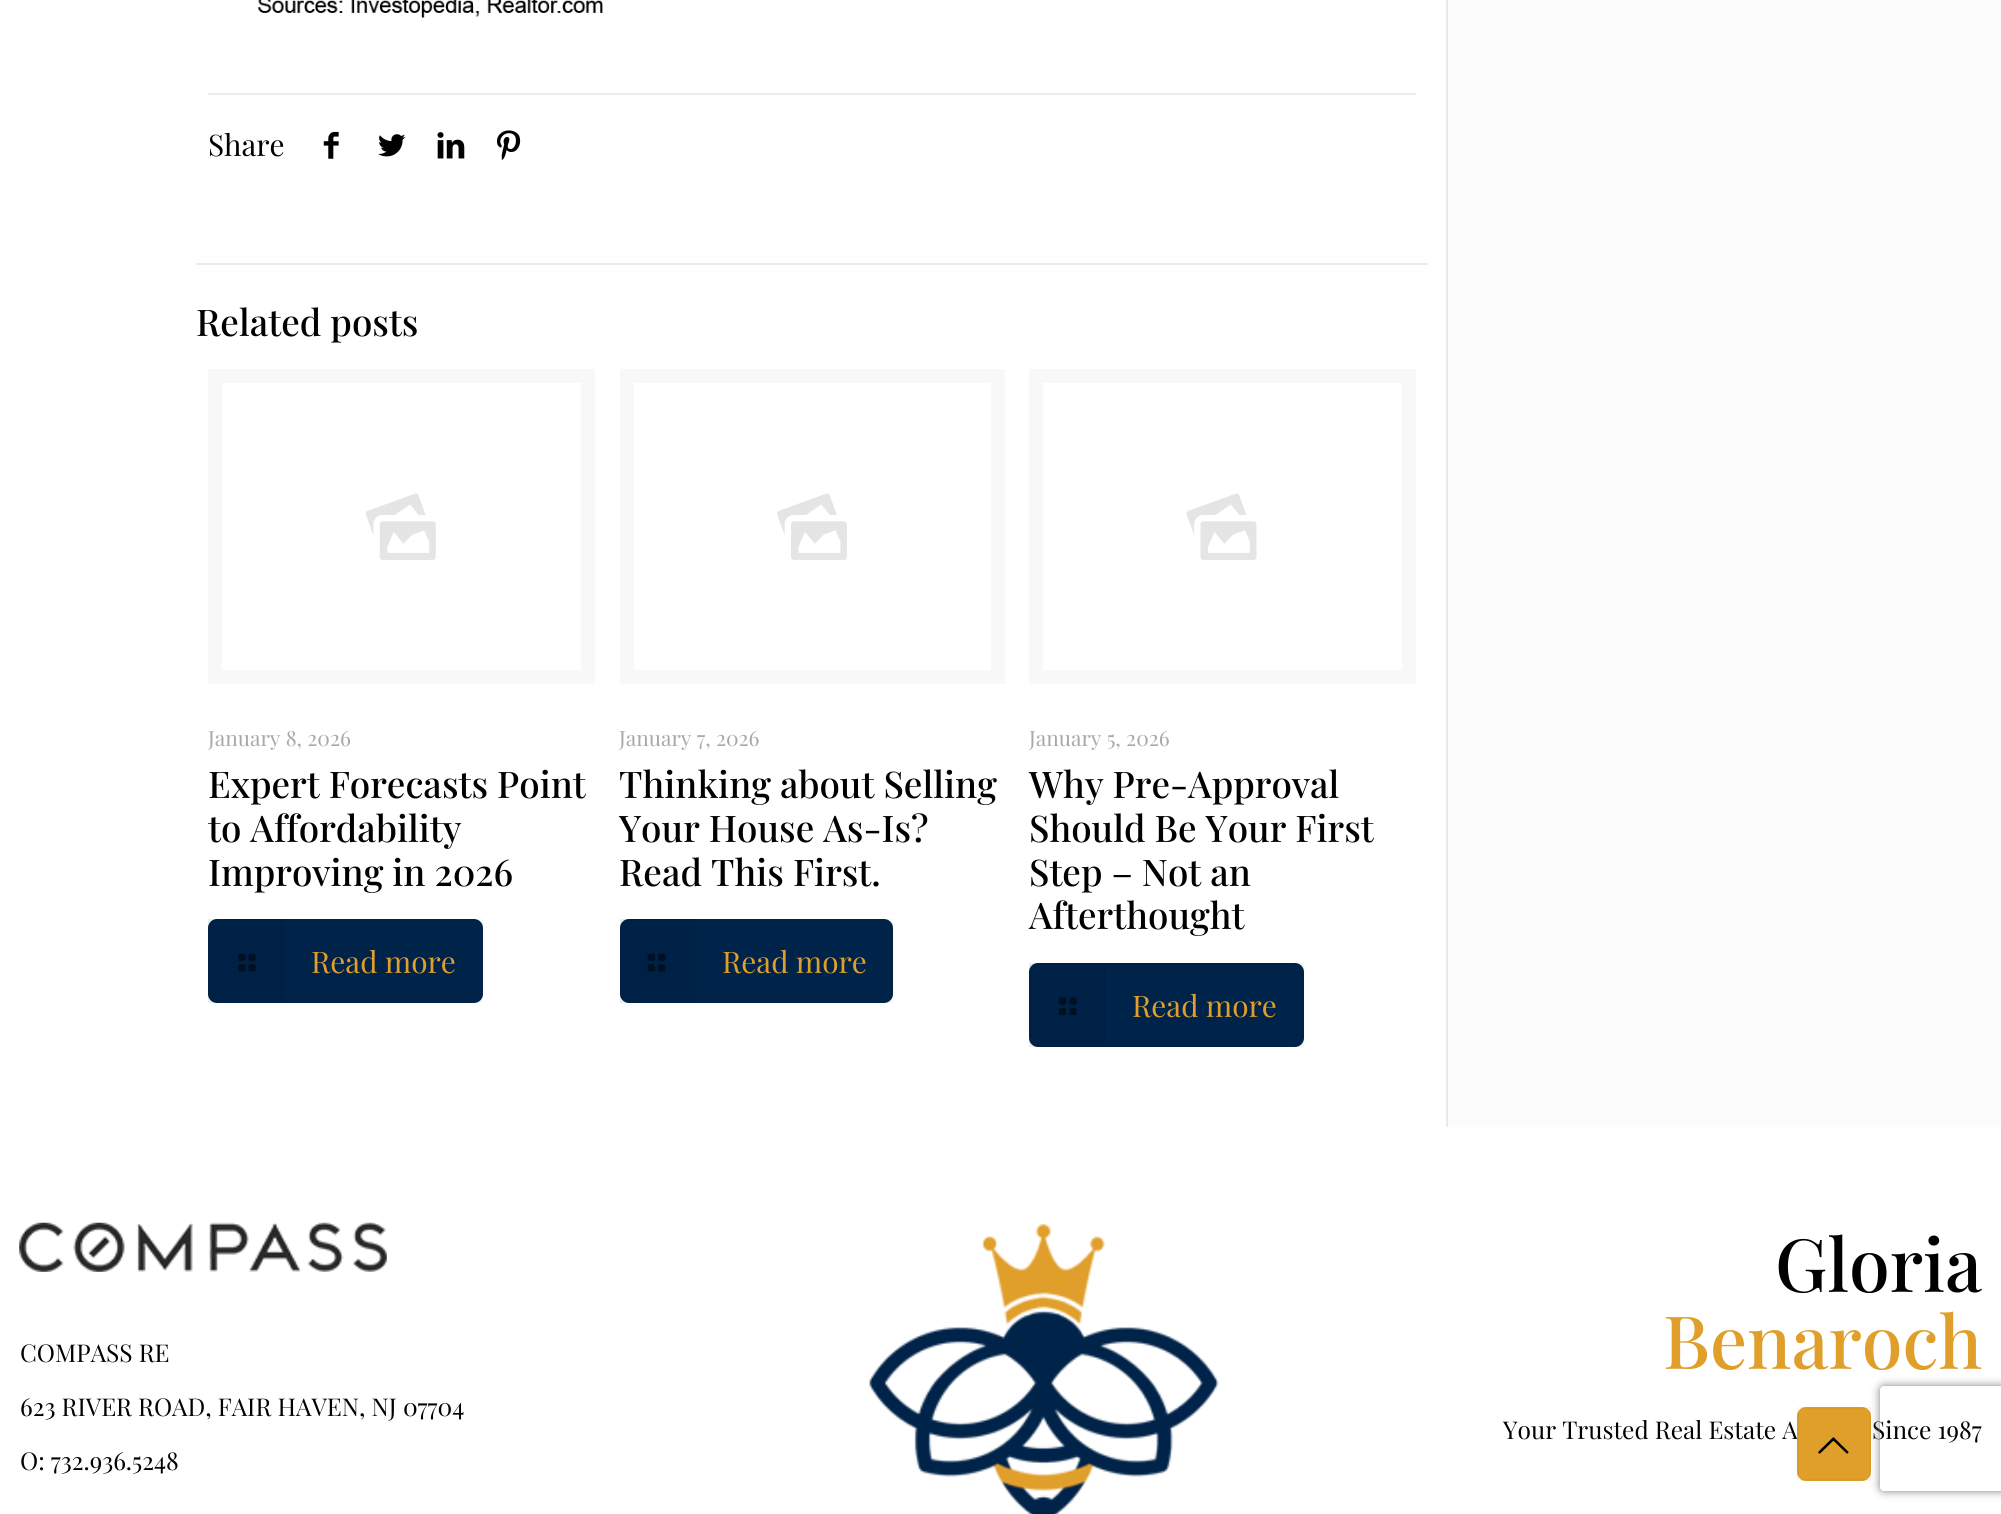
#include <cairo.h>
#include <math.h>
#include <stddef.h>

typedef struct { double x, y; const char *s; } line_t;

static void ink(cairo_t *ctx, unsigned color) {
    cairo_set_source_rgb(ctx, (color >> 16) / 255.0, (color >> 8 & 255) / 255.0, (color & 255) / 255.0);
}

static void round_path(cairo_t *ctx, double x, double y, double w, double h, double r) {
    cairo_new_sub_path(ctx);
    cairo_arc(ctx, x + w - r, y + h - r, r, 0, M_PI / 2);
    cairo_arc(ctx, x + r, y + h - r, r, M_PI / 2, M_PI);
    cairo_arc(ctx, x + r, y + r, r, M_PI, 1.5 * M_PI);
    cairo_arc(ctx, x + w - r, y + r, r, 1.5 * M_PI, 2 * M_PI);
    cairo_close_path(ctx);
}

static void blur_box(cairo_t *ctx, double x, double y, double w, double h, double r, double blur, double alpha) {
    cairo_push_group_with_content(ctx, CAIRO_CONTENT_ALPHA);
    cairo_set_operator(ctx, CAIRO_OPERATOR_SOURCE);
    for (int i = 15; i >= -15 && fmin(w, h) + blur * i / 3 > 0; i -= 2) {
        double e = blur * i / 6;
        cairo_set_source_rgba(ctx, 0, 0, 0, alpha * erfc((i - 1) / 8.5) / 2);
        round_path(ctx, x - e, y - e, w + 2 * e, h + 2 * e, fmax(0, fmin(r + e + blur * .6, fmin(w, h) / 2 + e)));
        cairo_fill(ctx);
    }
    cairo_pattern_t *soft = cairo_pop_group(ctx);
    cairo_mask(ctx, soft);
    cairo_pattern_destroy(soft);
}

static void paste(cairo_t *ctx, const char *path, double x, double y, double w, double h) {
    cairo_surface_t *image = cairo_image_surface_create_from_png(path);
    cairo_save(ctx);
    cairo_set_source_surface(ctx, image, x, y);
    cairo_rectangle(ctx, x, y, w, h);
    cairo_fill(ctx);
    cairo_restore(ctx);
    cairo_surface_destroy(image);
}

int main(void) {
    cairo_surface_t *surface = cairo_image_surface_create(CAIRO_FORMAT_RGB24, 2001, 1514);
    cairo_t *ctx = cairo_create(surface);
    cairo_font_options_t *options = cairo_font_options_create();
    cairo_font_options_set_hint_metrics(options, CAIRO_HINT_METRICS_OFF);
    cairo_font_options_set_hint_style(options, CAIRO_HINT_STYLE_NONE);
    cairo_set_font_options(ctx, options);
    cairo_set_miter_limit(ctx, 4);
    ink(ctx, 0xFFFFFF);
    cairo_paint(ctx);
    ink(ctx, 0xFCFCFC);
    cairo_rectangle(ctx, 1448, 0, 553, 1127);
    cairo_fill(ctx);
    paste(ctx, "media/1.png", 257, 0, 346, 18);
    ink(ctx, 0xEBEBEB);
    cairo_rectangle(ctx, 208, 93, 1208, 2);
    cairo_fill(ctx);
    cairo_select_font_face(ctx, "Playfair Display", CAIRO_FONT_SLANT_NORMAL, CAIRO_FONT_WEIGHT_NORMAL);
    cairo_set_font_size(ctx, 29.75);
    ink(ctx, 0x000000);
    cairo_move_to(ctx, 208, 156);
    cairo_show_text(ctx, "Share");
    paste(ctx, "media/2.png", 323, 131, 16, 28);
    paste(ctx, "media/3.png", 378, 134, 28, 23);
    paste(ctx, "media/4.png", 437, 132, 28, 27);
    paste(ctx, "media/5.png", 497, 130, 24, 30);
    ink(ctx, 0xEBEBEB);
    cairo_rectangle(ctx, 196, 263, 1232, 2);
    cairo_fill(ctx);
    cairo_select_font_face(ctx, "Playfair Display Medium", CAIRO_FONT_SLANT_NORMAL, CAIRO_FONT_WEIGHT_NORMAL);
    cairo_set_font_size(ctx, 36.75);
    ink(ctx, 0x000000);
    cairo_move_to(ctx, 196, 336);
    cairo_show_text(ctx, "Related posts");
    cairo_rectangle(ctx, 215, 376, 373, 301);
    ink(ctx, 0xF8F8F8);
    cairo_set_line_width(ctx, 14);
    cairo_stroke(ctx);
    paste(ctx, "media/6.png", 365, 493, 71, 67);
    cairo_select_font_face(ctx, "Playfair Display", CAIRO_FONT_SLANT_NORMAL, CAIRO_FONT_WEIGHT_NORMAL);
    cairo_set_font_size(ctx, 21);
    ink(ctx, 0xA8A8A8);
    cairo_move_to(ctx, 208, 746);
    cairo_show_text(ctx, "January 8, 2026");
    cairo_select_font_face(ctx, "Playfair Display Medium", CAIRO_FONT_SLANT_NORMAL, CAIRO_FONT_WEIGHT_NORMAL);
    cairo_set_font_size(ctx, 36.75);
    ink(ctx, 0x000000);
    {
        static const line_t items[] = {
            {208, 798, "Expert Forecasts Point"},
            {208, 842, "to Affordability"},
            {208, 886, "Improving in 2026"},
        };
        for (size_t i = 0; i < sizeof items / sizeof *items; i++) {
            cairo_move_to(ctx, items[i].x, items[i].y);
            cairo_show_text(ctx, items[i].s);
        }
    }
    ink(ctx, 0x002349);
    round_path(ctx, 208, 919, 275, 84, 9);
    cairo_fill(ctx);
    cairo_rectangle(ctx, 209, 920, 273, 82);
    cairo_set_source_rgba(ctx, 0, 0, 0, 0.03);
    cairo_set_line_width(ctx, 2);
    cairo_stroke(ctx);
    cairo_set_source_rgba(ctx, 0, 0, 0, 0.05);
    cairo_rectangle(ctx, 208, 919, 77, 84);
    cairo_fill(ctx);
    paste(ctx, "media/7.png", 238, 953, 18, 19);
    cairo_select_font_face(ctx, "Playfair Display", CAIRO_FONT_SLANT_NORMAL, CAIRO_FONT_WEIGHT_NORMAL);
    cairo_set_font_size(ctx, 29.75);
    ink(ctx, 0xE09E2B);
    cairo_move_to(ctx, 311, 973);
    cairo_show_text(ctx, "Read more");
    cairo_rectangle(ctx, 627, 376, 371, 301);
    ink(ctx, 0xF8F8F8);
    cairo_set_line_width(ctx, 14);
    cairo_stroke(ctx);
    paste(ctx, "media/8.png", 777, 493, 70, 67);
    cairo_set_font_size(ctx, 21);
    ink(ctx, 0xA8A8A8);
    cairo_move_to(ctx, 619, 746);
    cairo_show_text(ctx, "January 7, 2026");
    cairo_select_font_face(ctx, "Playfair Display Medium", CAIRO_FONT_SLANT_NORMAL, CAIRO_FONT_WEIGHT_NORMAL);
    cairo_set_font_size(ctx, 36.75);
    ink(ctx, 0x000000);
    {
        static const line_t items[] = {
            {619, 798, "Thinking about Selling"},
            {619, 842, "Your House As-Is?"},
            {619, 886, "Read This First."},
        };
        for (size_t i = 0; i < sizeof items / sizeof *items; i++) {
            cairo_move_to(ctx, items[i].x, items[i].y);
            cairo_show_text(ctx, items[i].s);
        }
    }
    ink(ctx, 0x002349);
    round_path(ctx, 620, 919, 273, 84, 9);
    cairo_fill(ctx);
    cairo_rectangle(ctx, 621, 920, 271, 82);
    cairo_set_source_rgba(ctx, 0, 0, 0, 0.03);
    cairo_set_line_width(ctx, 2);
    cairo_stroke(ctx);
    cairo_set_source_rgba(ctx, 0, 0, 0, 0.05);
    cairo_rectangle(ctx, 620, 919, 75, 84);
    cairo_fill(ctx);
    paste(ctx, "media/9.png", 647, 953, 19, 19);
    cairo_select_font_face(ctx, "Playfair Display", CAIRO_FONT_SLANT_NORMAL, CAIRO_FONT_WEIGHT_NORMAL);
    cairo_set_font_size(ctx, 29.75);
    ink(ctx, 0xE09E2B);
    cairo_move_to(ctx, 722, 973);
    cairo_show_text(ctx, "Read more");
    cairo_rectangle(ctx, 1036, 376, 373, 301);
    ink(ctx, 0xF8F8F8);
    cairo_set_line_width(ctx, 14);
    cairo_stroke(ctx);
    paste(ctx, "media/10.png", 1186, 493, 71, 67);
    cairo_set_font_size(ctx, 21);
    ink(ctx, 0xA8A8A8);
    cairo_move_to(ctx, 1029, 746);
    cairo_show_text(ctx, "January 5, 2026");
    cairo_select_font_face(ctx, "Playfair Display Medium", CAIRO_FONT_SLANT_NORMAL, CAIRO_FONT_WEIGHT_NORMAL);
    cairo_set_font_size(ctx, 36.75);
    ink(ctx, 0x000000);
    {
        static const line_t items[] = {
            {1029, 798, "Why Pre-Approval"},
            {1029, 842, "Should Be Your First"},
            {1029, 886, "Step – Not an"},
            {1029, 929, "Afterthought"},
        };
        for (size_t i = 0; i < sizeof items / sizeof *items; i++) {
            cairo_move_to(ctx, items[i].x, items[i].y);
            cairo_show_text(ctx, items[i].s);
        }
    }
    ink(ctx, 0x002349);
    round_path(ctx, 1029, 963, 275, 84, 9);
    cairo_fill(ctx);
    cairo_rectangle(ctx, 1030, 964, 273, 82);
    cairo_set_source_rgba(ctx, 0, 0, 0, 0.03);
    cairo_set_line_width(ctx, 2);
    cairo_stroke(ctx);
    cairo_set_source_rgba(ctx, 0, 0, 0, 0.05);
    cairo_rectangle(ctx, 1029, 963, 77, 84);
    cairo_fill(ctx);
    paste(ctx, "media/11.png", 1058, 997, 19, 19);
    cairo_select_font_face(ctx, "Playfair Display", CAIRO_FONT_SLANT_NORMAL, CAIRO_FONT_WEIGHT_NORMAL);
    cairo_set_font_size(ctx, 29.75);
    ink(ctx, 0xE09E2B);
    cairo_move_to(ctx, 1132, 1017);
    cairo_show_text(ctx, "Read more");
    ink(ctx, 0xEBEBEB);
    cairo_rectangle(ctx, 1446, 0, 1, 1127);
    cairo_fill(ctx);
    ink(ctx, 0xE9E9E9);
    cairo_rectangle(ctx, 1447, 0, 1, 1127);
    cairo_fill(ctx);
    paste(ctx, "media/12.png", 19, 1222, 368, 50);
    cairo_set_font_size(ctx, 24.5);
    ink(ctx, 0x000000);
    {
        static const line_t items[] = {
            {20, 1362, "COMPASS RE"},
            {20, 1416, "623 RIVER ROAD, FAIR HAVEN, NJ 07704"},
            {20, 1470, "O: 732.936.5248"},
        };
        for (size_t i = 0; i < sizeof items / sizeof *items; i++) {
            cairo_move_to(ctx, items[i].x, items[i].y);
            cairo_show_text(ctx, items[i].s);
        }
    }
    paste(ctx, "media/13.png", 869, 1224, 350, 290);
    cairo_select_font_face(ctx, "Playfair Display Medium", CAIRO_FONT_SLANT_NORMAL, CAIRO_FONT_WEIGHT_NORMAL);
    cairo_set_font_size(ctx, 73.5);
    cairo_move_to(ctx, 1775, 1292);
    cairo_show_text(ctx, "Gloria");
    ink(ctx, 0xE09E2B);
    cairo_move_to(ctx, 1663, 1369);
    cairo_show_text(ctx, "Benaroch");
    cairo_select_font_face(ctx, "Playfair Display", CAIRO_FONT_SLANT_NORMAL, CAIRO_FONT_WEIGHT_NORMAL);
    cairo_set_font_size(ctx, 24.5);
    ink(ctx, 0x000000);
    cairo_move_to(ctx, 1503, 1439);
    cairo_show_text(ctx, "Your Trusted Real Estate A");
    cairo_move_to(ctx, 1872, 1439);
    cairo_show_text(ctx, "Since 1987");
    cairo_save(ctx);
    cairo_set_fill_rule(ctx, CAIRO_FILL_RULE_EVEN_ODD);
    cairo_new_path(ctx);
    cairo_move_to(ctx, 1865, 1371);
    cairo_line_to(ctx, 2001, 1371);
    cairo_line_to(ctx, 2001, 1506);
    cairo_line_to(ctx, 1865, 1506);
    cairo_close_path(ctx);
    cairo_move_to(ctx, 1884, 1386);
    cairo_line_to(ctx, 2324, 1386);
    cairo_curve_to(ctx, 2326, 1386, 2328, 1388, 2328, 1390);
    cairo_line_to(ctx, 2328, 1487);
    cairo_curve_to(ctx, 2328, 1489, 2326, 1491, 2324, 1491);
    cairo_line_to(ctx, 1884, 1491);
    cairo_curve_to(ctx, 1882, 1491, 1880, 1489, 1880, 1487);
    cairo_line_to(ctx, 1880, 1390);
    cairo_curve_to(ctx, 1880, 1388, 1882, 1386, 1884, 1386);
    cairo_close_path(ctx);
    cairo_clip(ctx);
    ink(ctx, 0x808080);
    blur_box(ctx, 1880, 1386, 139, 105, 4, 4.5, 1);
    cairo_restore(ctx);
    ink(ctx, 0xE09E2B);
    round_path(ctx, 1797, 1407, 74, 74, 9);
    cairo_fill(ctx);
    cairo_rectangle(ctx, 1798, 1408, 72, 72);
    cairo_set_source_rgba(ctx, 0, 0, 0, 0.03);
    cairo_stroke(ctx);
    paste(ctx, "media/14.png", 1818, 1437, 31, 17);
    cairo_surface_write_to_png(surface, "image.png");
    cairo_font_options_destroy(options);
    cairo_destroy(ctx);
    cairo_surface_destroy(surface);
    return 0;
}
